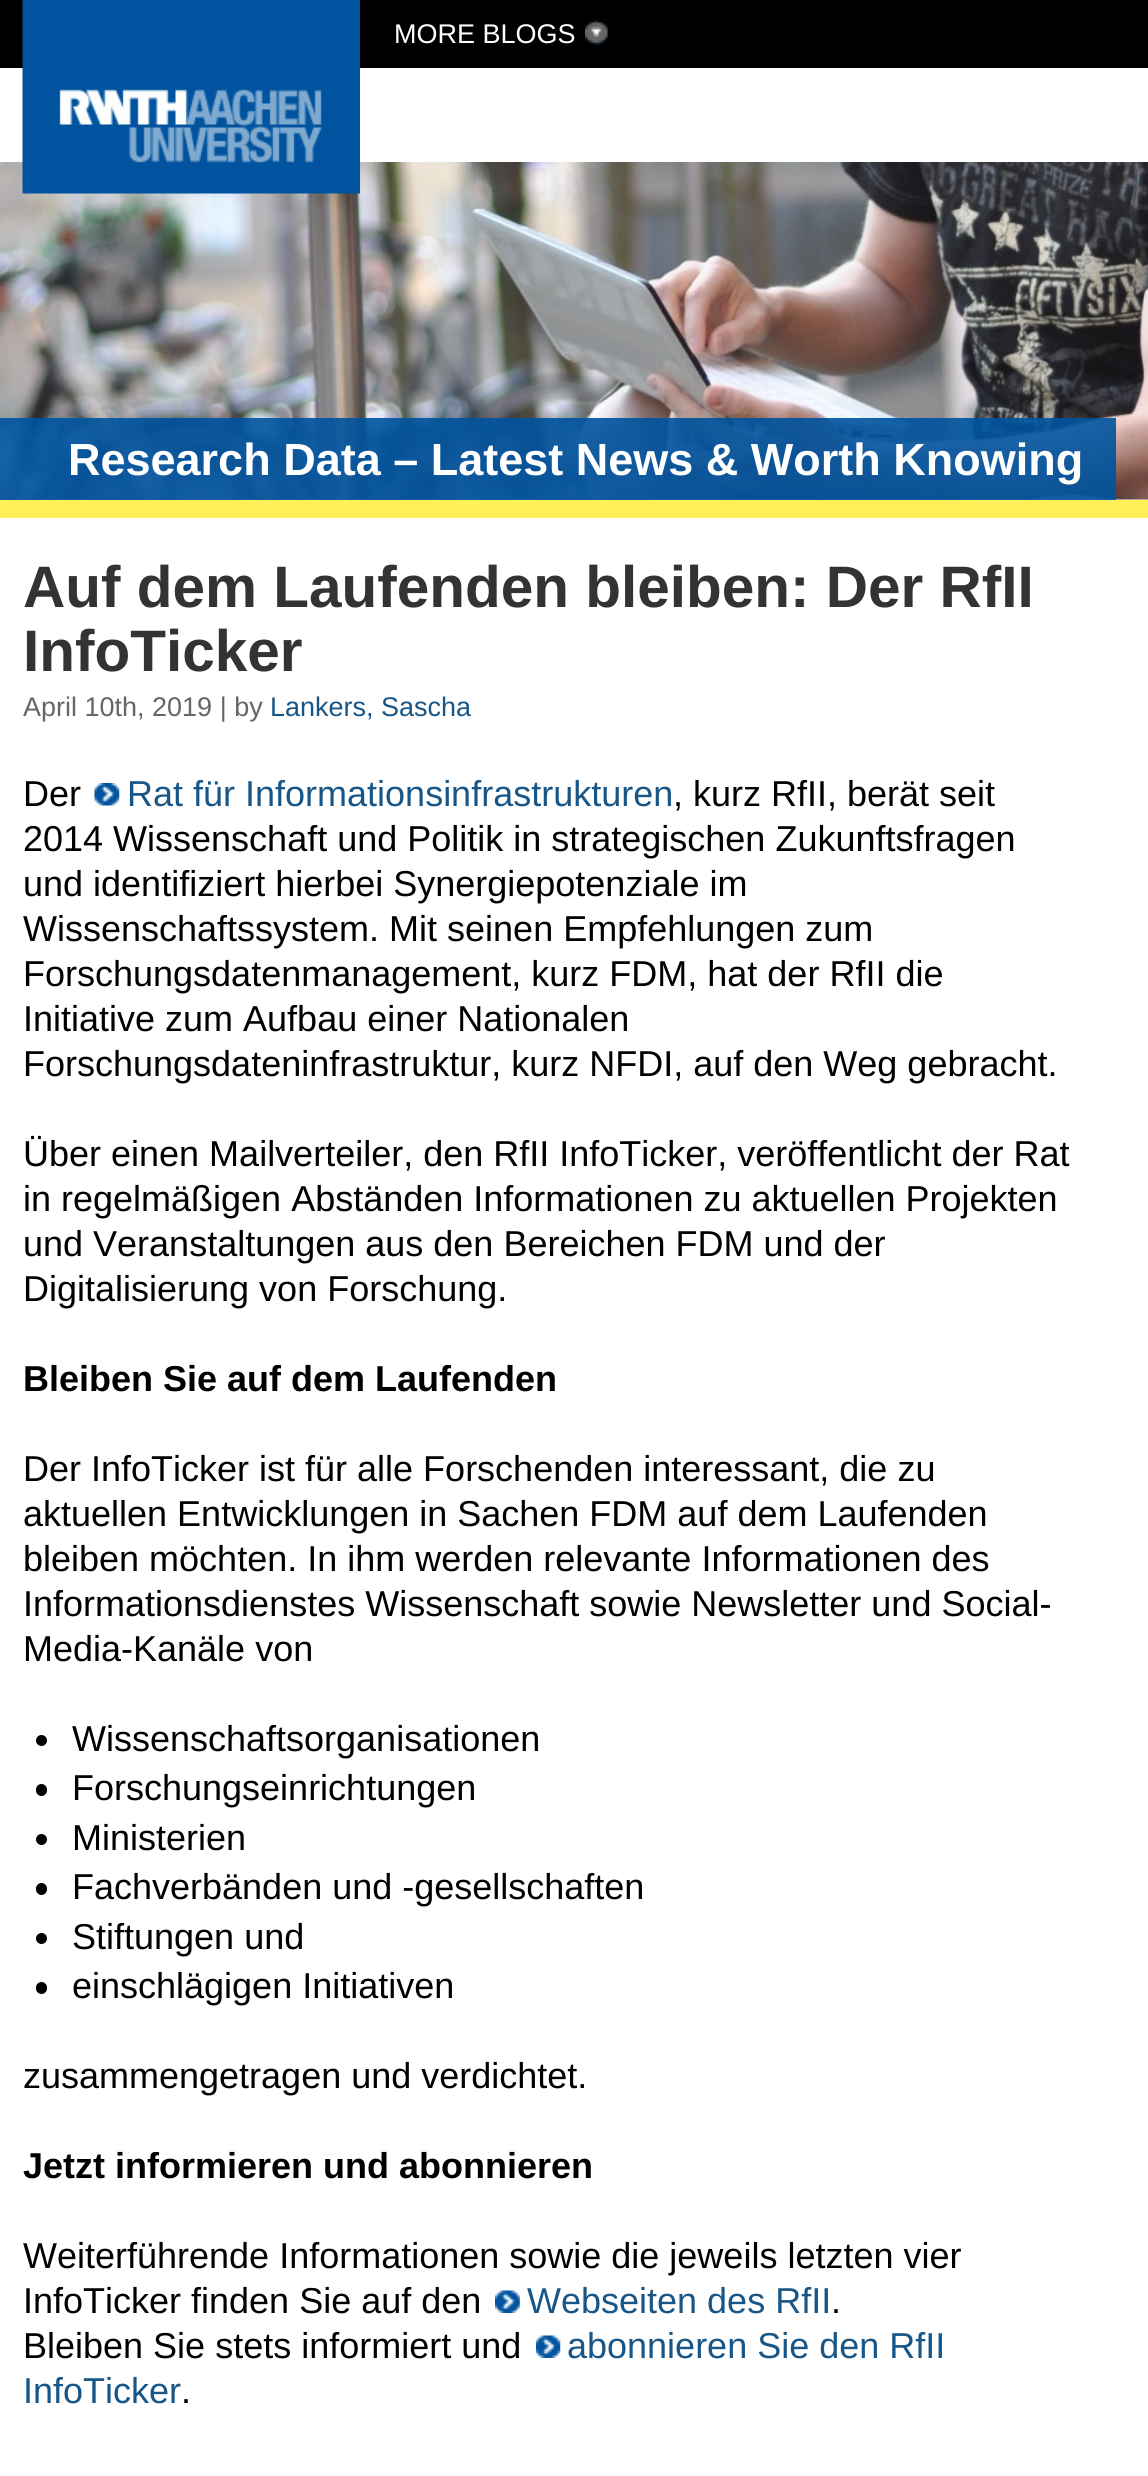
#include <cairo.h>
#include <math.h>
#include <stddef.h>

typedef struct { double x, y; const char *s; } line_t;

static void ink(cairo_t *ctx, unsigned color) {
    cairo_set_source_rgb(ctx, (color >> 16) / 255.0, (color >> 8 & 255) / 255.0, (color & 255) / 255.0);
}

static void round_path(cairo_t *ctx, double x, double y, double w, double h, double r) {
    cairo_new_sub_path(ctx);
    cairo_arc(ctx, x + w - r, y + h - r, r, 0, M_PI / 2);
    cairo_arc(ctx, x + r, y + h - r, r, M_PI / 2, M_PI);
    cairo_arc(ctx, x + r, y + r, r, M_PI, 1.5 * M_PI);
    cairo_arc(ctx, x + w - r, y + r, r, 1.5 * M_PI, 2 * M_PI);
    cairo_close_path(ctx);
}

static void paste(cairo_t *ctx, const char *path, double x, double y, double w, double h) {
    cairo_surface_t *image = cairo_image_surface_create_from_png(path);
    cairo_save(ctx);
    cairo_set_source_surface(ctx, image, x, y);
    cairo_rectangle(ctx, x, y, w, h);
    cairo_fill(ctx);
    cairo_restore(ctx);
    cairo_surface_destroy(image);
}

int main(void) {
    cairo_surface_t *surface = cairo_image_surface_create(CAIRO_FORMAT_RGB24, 1148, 2476);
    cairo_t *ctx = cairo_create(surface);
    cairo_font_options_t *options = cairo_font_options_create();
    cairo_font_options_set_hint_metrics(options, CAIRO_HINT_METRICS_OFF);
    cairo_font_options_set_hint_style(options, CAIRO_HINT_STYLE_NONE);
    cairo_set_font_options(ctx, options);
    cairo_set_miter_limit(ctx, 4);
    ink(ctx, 0xFFFFFF);
    cairo_paint(ctx);
    ink(ctx, 0x000000);
    cairo_rectangle(ctx, 0, 0, 1148, 68);
    cairo_fill(ctx);
    paste(ctx, "media/3.png", 0, 162, 1148, 338);
    paste(ctx, "media/1.png", 22, 0, 338, 194);
    paste(ctx, "media/2.png", 585, 20, 23, 25);
    cairo_select_font_face(ctx, "Liberation Sans", CAIRO_FONT_SLANT_NORMAL, CAIRO_FONT_WEIGHT_NORMAL);
    cairo_set_font_size(ctx, 27);
    ink(ctx, 0xFFFFFF);
    cairo_move_to(ctx, 394, 43);
    cairo_show_text(ctx, "MORE BLOGS");
    cairo_set_source_rgba(ctx, 0, 0.329, 0.624, 0.9);
    cairo_rectangle(ctx, 0, 418, 1116, 82);
    cairo_fill(ctx);
    cairo_select_font_face(ctx, "Liberation Sans", CAIRO_FONT_SLANT_NORMAL, CAIRO_FONT_WEIGHT_BOLD);
    cairo_set_font_size(ctx, 45);
    ink(ctx, 0xFFFFFF);
    cairo_move_to(ctx, 68, 475);
    cairo_show_text(ctx, "Research Data – Latest News & Worth Knowing");
    ink(ctx, 0xFFF059);
    cairo_rectangle(ctx, 0, 500, 1148, 18);
    cairo_fill(ctx);
    cairo_set_font_size(ctx, 58.5);
    ink(ctx, 0x333333);
    cairo_move_to(ctx, 23, 607);
    cairo_show_text(ctx, "Auf dem Laufenden bleiben: Der RfII");
    cairo_move_to(ctx, 23, 671);
    cairo_show_text(ctx, "InfoTicker");
    cairo_select_font_face(ctx, "Liberation Sans", CAIRO_FONT_SLANT_NORMAL, CAIRO_FONT_WEIGHT_NORMAL);
    cairo_set_font_size(ctx, 27);
    ink(ctx, 0x666666);
    cairo_move_to(ctx, 23, 716);
    cairo_show_text(ctx, "April 10th, 2019 | by");
    ink(ctx, 0x175686);
    cairo_move_to(ctx, 270, 716);
    cairo_show_text(ctx, "Lankers, Sascha");
    cairo_set_font_size(ctx, 36);
    ink(ctx, 0x000000);
    cairo_move_to(ctx, 23, 806);
    cairo_show_text(ctx, "Der");
    paste(ctx, "media/4.png", 94, 783, 26, 23);
    ink(ctx, 0x175686);
    cairo_move_to(ctx, 127, 806);
    cairo_show_text(ctx, "Rat für Informationsinfrastrukturen");
    ink(ctx, 0x000000);
    {
        static const line_t items[] = {
            {673, 806, ", kurz RfII, berät seit"},
            {23, 851, "2014 Wissenschaft und Politik in strategischen Zukunftsfragen"},
            {23, 896, "und identifiziert hierbei Synergiepotenziale im"},
            {23, 941, "Wissenschaftssystem. Mit seinen Empfehlungen zum"},
            {23, 986, "Forschungsdatenmanagement, kurz FDM, hat der RfII die"},
            {23, 1031, "Initiative zum Aufbau einer Nationalen"},
            {23, 1076, "Forschungsdateninfrastruktur, kurz NFDI, auf den Weg gebracht."},
            {23, 1166, "Über einen Mailverteiler, den RfII InfoTicker, veröffentlicht der Rat"},
            {23, 1211, "in regelmäßigen Abständen Informationen zu aktuellen Projekten"},
            {23, 1256, "und Veranstaltungen aus den Bereichen FDM und der"},
            {23, 1301, "Digitalisierung von Forschung."},
        };
        for (size_t i = 0; i < sizeof items / sizeof *items; i++) {
            cairo_move_to(ctx, items[i].x, items[i].y);
            cairo_show_text(ctx, items[i].s);
        }
    }
    cairo_select_font_face(ctx, "Liberation Sans", CAIRO_FONT_SLANT_NORMAL, CAIRO_FONT_WEIGHT_BOLD);
    cairo_move_to(ctx, 23, 1391);
    cairo_show_text(ctx, "Bleiben Sie auf dem Laufenden");
    cairo_select_font_face(ctx, "Liberation Sans", CAIRO_FONT_SLANT_NORMAL, CAIRO_FONT_WEIGHT_NORMAL);
    {
        static const line_t items[] = {
            {23, 1481, "Der InfoTicker ist für alle Forschenden interessant, die zu"},
            {23, 1526, "aktuellen Entwicklungen in Sachen FDM auf dem Laufenden"},
            {23, 1571, "bleiben möchten. In ihm werden relevante Informationen des"},
            {23, 1616, "Informationsdienstes Wissenschaft sowie Newsletter und Social-"},
            {23, 1661, "Media-Kanäle von"},
        };
        for (size_t i = 0; i < sizeof items / sizeof *items; i++) {
            cairo_move_to(ctx, items[i].x, items[i].y);
            cairo_show_text(ctx, items[i].s);
        }
    }
    cairo_new_path(ctx);
    cairo_arc(ctx, 41.5, 1740.5, 5.5, 0, 2 * M_PI);
    cairo_fill(ctx);
    cairo_move_to(ctx, 72, 1751);
    cairo_show_text(ctx, "Wissenschaftsorganisationen");
    round_path(ctx, 36, 1784, 11, 12, 5.5);
    cairo_fill(ctx);
    cairo_move_to(ctx, 72, 1800);
    cairo_show_text(ctx, "Forschungseinrichtungen");
    cairo_new_path(ctx);
    cairo_arc(ctx, 41.5, 1839.5, 5.5, 0, 2 * M_PI);
    cairo_fill(ctx);
    cairo_move_to(ctx, 72, 1850);
    cairo_show_text(ctx, "Ministerien");
    round_path(ctx, 36, 1883, 11, 12, 5.5);
    cairo_fill(ctx);
    cairo_move_to(ctx, 72, 1899);
    cairo_show_text(ctx, "Fachverbänden und -gesellschaften");
    cairo_new_path(ctx);
    cairo_arc(ctx, 41.5, 1938.5, 5.5, 0, 2 * M_PI);
    cairo_fill(ctx);
    cairo_move_to(ctx, 72, 1949);
    cairo_show_text(ctx, "Stiftungen und");
    round_path(ctx, 36, 1982, 11, 12, 5.5);
    cairo_fill(ctx);
    cairo_move_to(ctx, 72, 1998);
    cairo_show_text(ctx, "einschlägigen Initiativen");
    cairo_move_to(ctx, 23, 2088);
    cairo_show_text(ctx, "zusammengetragen und verdichtet.");
    cairo_select_font_face(ctx, "Liberation Sans", CAIRO_FONT_SLANT_NORMAL, CAIRO_FONT_WEIGHT_BOLD);
    cairo_move_to(ctx, 23, 2178);
    cairo_show_text(ctx, "Jetzt informieren und abonnieren");
    cairo_select_font_face(ctx, "Liberation Sans", CAIRO_FONT_SLANT_NORMAL, CAIRO_FONT_WEIGHT_NORMAL);
    cairo_move_to(ctx, 23, 2268);
    cairo_show_text(ctx, "Weiterführende Informationen sowie die jeweils letzten vier");
    cairo_move_to(ctx, 23, 2313);
    cairo_show_text(ctx, "InfoTicker finden Sie auf den");
    paste(ctx, "media/5.png", 495, 2290, 25, 23);
    ink(ctx, 0x175686);
    cairo_move_to(ctx, 527, 2313);
    cairo_show_text(ctx, "Webseiten des RfII");
    ink(ctx, 0x000000);
    cairo_move_to(ctx, 831, 2313);
    cairo_show_text(ctx, ".");
    cairo_move_to(ctx, 23, 2358);
    cairo_show_text(ctx, "Bleiben Sie stets informiert und");
    paste(ctx, "media/6.png", 536, 2335, 25, 23);
    ink(ctx, 0x175686);
    cairo_move_to(ctx, 567, 2358);
    cairo_show_text(ctx, "abonnieren Sie den RfII");
    cairo_move_to(ctx, 23, 2403);
    cairo_show_text(ctx, "InfoTicker");
    ink(ctx, 0x000000);
    cairo_move_to(ctx, 181, 2403);
    cairo_show_text(ctx, ".");
    cairo_surface_write_to_png(surface, "image.png");
    cairo_font_options_destroy(options);
    cairo_destroy(ctx);
    cairo_surface_destroy(surface);
    return 0;
}
